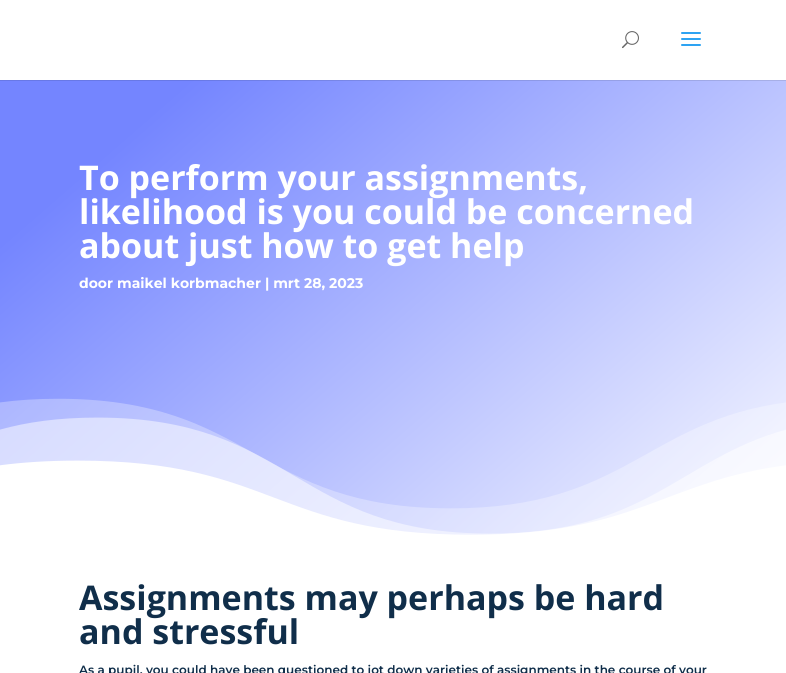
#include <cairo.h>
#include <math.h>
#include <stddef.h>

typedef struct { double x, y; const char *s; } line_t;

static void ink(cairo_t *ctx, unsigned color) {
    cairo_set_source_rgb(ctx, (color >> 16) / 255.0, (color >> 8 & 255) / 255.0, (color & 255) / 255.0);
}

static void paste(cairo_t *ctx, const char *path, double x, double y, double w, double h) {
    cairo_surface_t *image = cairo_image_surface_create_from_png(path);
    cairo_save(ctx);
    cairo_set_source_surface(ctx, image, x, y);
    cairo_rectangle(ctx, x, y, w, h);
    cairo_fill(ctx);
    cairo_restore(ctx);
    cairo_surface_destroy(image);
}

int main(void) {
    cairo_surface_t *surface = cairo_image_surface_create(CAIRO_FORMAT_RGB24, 786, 673);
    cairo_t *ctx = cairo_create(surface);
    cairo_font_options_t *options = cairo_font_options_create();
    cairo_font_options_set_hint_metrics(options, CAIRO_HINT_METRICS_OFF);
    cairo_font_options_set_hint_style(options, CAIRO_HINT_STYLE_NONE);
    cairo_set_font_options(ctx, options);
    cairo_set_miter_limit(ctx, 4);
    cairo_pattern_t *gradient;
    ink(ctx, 0xFFFFFF);
    cairo_paint(ctx);
    paste(ctx, "media/1.png", 622, 31, 17, 18);
    paste(ctx, "media/2.png", 681, 32, 20, 14);
    gradient = cairo_pattern_create_linear(686, 667, 100, -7);
    cairo_pattern_add_color_stop_rgba(gradient, 0, 1, 1, 1, 1);
    cairo_pattern_add_color_stop_rgba(gradient, 0.86, 0.455, 0.522, 1, 1);
    cairo_set_source(ctx, gradient);
    cairo_pattern_destroy(gradient);
    cairo_rectangle(ctx, 0, 81, 786, 454);
    cairo_fill(ctx);
    gradient = cairo_pattern_create_linear(686, 667, 100, -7);
    cairo_pattern_add_color_stop_rgba(gradient, 0, 0.902, 0.902, 0.902, 1);
    cairo_pattern_add_color_stop_rgba(gradient, 0.86, 0.408, 0.471, 0.902, 1);
    cairo_set_source(ctx, gradient);
    cairo_pattern_destroy(gradient);
    cairo_rectangle(ctx, 0, 80, 786, 1);
    cairo_fill(ctx);
    cairo_select_font_face(ctx, "Open Sans", CAIRO_FONT_SLANT_NORMAL, CAIRO_FONT_WEIGHT_BOLD);
    cairo_set_font_size(ctx, 34);
    ink(ctx, 0xFFFFFF);
    {
        static const line_t items[] = {
            {79, 190, "To perform your assignments,"},
            {79, 224, "likelihood is you could be concerned"},
            {79, 258, "about just how to get help"},
        };
        for (size_t i = 0; i < sizeof items / sizeof *items; i++) {
            cairo_move_to(ctx, items[i].x, items[i].y);
            cairo_show_text(ctx, items[i].s);
        }
    }
    cairo_select_font_face(ctx, "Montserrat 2 Thin", CAIRO_FONT_SLANT_NORMAL, CAIRO_FONT_WEIGHT_NORMAL);
    cairo_set_font_size(ctx, 14);
    cairo_move_to(ctx, 79, 288);
    cairo_show_text(ctx, "door maikel korbmacher | mrt 28, 2023");
    paste(ctx, "media/3.png", 0, 398, 786, 182);
    cairo_select_font_face(ctx, "Open Sans", CAIRO_FONT_SLANT_NORMAL, CAIRO_FONT_WEIGHT_BOLD);
    cairo_set_font_size(ctx, 34);
    ink(ctx, 0x102E4A);
    cairo_move_to(ctx, 79, 610);
    cairo_show_text(ctx, "Assignments may perhaps be hard");
    cairo_move_to(ctx, 79, 644);
    cairo_show_text(ctx, "and stressful");
    cairo_select_font_face(ctx, "Montserrat Thin", CAIRO_FONT_SLANT_NORMAL, CAIRO_FONT_WEIGHT_NORMAL);
    cairo_set_font_size(ctx, 12);
    cairo_move_to(ctx, 79, 674);
    cairo_show_text(ctx, "As a pupil, you could have been questioned to jot down varieties of assignments in the course of your");
    cairo_surface_write_to_png(surface, "image.png");
    cairo_font_options_destroy(options);
    cairo_destroy(ctx);
    cairo_surface_destroy(surface);
    return 0;
}
